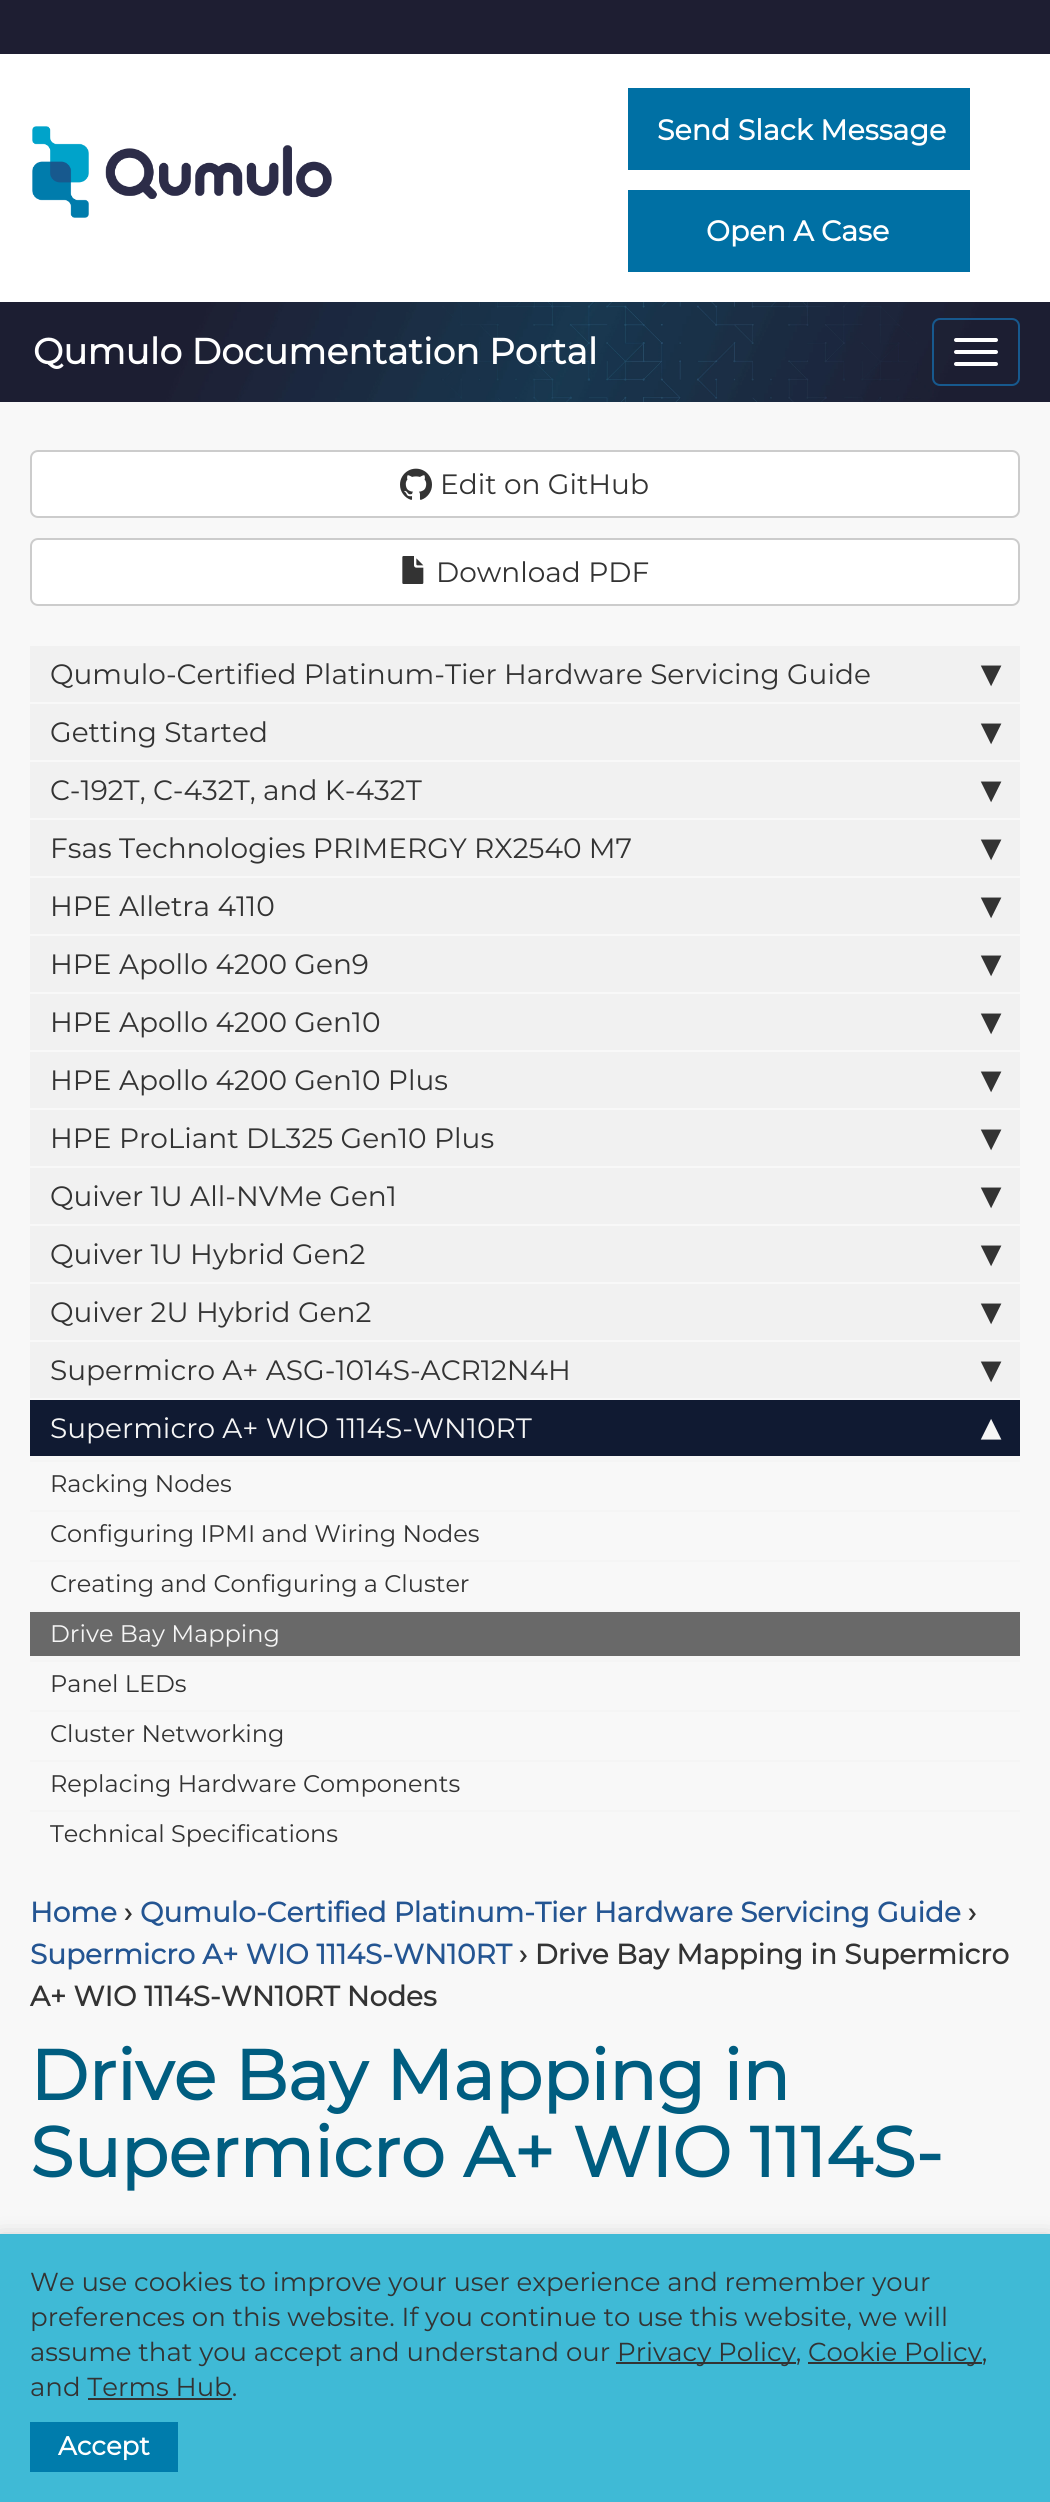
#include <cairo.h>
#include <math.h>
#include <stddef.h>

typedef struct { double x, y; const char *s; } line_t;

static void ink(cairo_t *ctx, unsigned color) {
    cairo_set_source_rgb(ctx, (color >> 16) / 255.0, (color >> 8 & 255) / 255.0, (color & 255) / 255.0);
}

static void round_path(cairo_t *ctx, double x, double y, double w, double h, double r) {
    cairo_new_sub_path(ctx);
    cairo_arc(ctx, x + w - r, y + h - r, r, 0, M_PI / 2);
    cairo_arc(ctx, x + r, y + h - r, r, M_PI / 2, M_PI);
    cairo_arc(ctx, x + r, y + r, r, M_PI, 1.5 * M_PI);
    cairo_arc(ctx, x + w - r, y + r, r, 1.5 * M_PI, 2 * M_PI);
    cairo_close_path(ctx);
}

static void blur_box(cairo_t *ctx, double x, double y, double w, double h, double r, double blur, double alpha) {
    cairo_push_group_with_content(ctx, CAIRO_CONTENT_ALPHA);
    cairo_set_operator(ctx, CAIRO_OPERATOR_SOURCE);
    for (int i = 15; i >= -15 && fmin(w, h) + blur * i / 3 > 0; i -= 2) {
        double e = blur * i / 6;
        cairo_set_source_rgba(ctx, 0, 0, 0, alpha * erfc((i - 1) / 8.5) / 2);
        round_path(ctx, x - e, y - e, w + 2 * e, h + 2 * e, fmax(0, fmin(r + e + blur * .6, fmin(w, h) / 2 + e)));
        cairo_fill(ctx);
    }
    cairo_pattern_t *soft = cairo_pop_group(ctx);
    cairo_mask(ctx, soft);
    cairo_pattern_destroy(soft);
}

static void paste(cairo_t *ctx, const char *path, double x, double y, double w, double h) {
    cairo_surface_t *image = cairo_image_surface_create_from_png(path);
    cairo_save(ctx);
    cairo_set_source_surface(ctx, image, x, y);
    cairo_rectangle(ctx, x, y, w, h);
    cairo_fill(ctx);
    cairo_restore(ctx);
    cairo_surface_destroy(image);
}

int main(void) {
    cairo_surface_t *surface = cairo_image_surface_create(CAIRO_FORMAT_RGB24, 1050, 2502);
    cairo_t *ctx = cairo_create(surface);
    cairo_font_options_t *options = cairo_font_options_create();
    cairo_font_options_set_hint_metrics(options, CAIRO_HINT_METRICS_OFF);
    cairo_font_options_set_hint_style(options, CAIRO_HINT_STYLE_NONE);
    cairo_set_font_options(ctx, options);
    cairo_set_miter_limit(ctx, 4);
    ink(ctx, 0xF8F8F8);
    cairo_paint(ctx);
    ink(ctx, 0x1E1E32);
    cairo_rectangle(ctx, 0, 0, 1050, 54);
    cairo_fill(ctx);
    ink(ctx, 0xFFFFFF);
    cairo_rectangle(ctx, 0, 54, 1050, 248);
    cairo_fill(ctx);
    paste(ctx, "media/1.png", 32, 126, 300, 92);
    ink(ctx, 0x0070A4);
    cairo_rectangle(ctx, 628, 88, 342, 82);
    cairo_fill(ctx);
    cairo_select_font_face(ctx, "Montserrat", CAIRO_FONT_SLANT_NORMAL, CAIRO_FONT_WEIGHT_BOLD);
    cairo_set_font_size(ctx, 28.5);
    ink(ctx, 0xFFFFFF);
    cairo_move_to(ctx, 657, 140);
    cairo_show_text(ctx, "Send Slack Message");
    ink(ctx, 0x0070A4);
    cairo_rectangle(ctx, 628, 190, 342, 82);
    cairo_fill(ctx);
    ink(ctx, 0xFFFFFF);
    cairo_move_to(ctx, 706, 241);
    cairo_show_text(ctx, "Open A Case");
    paste(ctx, "media/2.png", 0, 302, 1050, 100);
    cairo_set_font_size(ctx, 36);
    cairo_move_to(ctx, 33, 364);
    cairo_show_text(ctx, "Qumulo Documentation Portal");
    round_path(ctx, 933, 319, 86, 66, 7);
    ink(ctx, 0x17598E);
    cairo_stroke(ctx);
    ink(ctx, 0xFFFFFF);
    round_path(ctx, 954, 338, 44, 4, 2);
    cairo_fill(ctx);
    round_path(ctx, 954, 350, 44, 4, 2);
    cairo_fill(ctx);
    round_path(ctx, 954, 362, 44, 4, 2);
    cairo_fill(ctx);
    round_path(ctx, 31, 451, 988, 66, 7);
    cairo_fill_preserve(ctx);
    ink(ctx, 0xCCCCCC);
    cairo_stroke(ctx);
    paste(ctx, "media/3.png", 400, 468, 32, 32);
    cairo_select_font_face(ctx, "Montserrat Thin", CAIRO_FONT_SLANT_NORMAL, CAIRO_FONT_WEIGHT_NORMAL);
    cairo_set_font_size(ctx, 28);
    ink(ctx, 0x333333);
    cairo_move_to(ctx, 440, 494);
    cairo_show_text(ctx, "Edit on GitHub");
    ink(ctx, 0xFFFFFF);
    round_path(ctx, 31, 539, 988, 66, 7);
    cairo_fill_preserve(ctx);
    ink(ctx, 0xCCCCCC);
    cairo_stroke(ctx);
    paste(ctx, "media/4.png", 402, 556, 22, 28);
    ink(ctx, 0x333333);
    cairo_move_to(ctx, 436, 582);
    cairo_show_text(ctx, "Download PDF");
    ink(ctx, 0xF1F1F1);
    cairo_rectangle(ctx, 30, 646, 990, 56);
    cairo_fill(ctx);
    ink(ctx, 0x333333);
    cairo_move_to(ctx, 50, 684);
    cairo_show_text(ctx, "Qumulo-Certified Platinum-Tier Hardware Servicing Guide");
    cairo_select_font_face(ctx, "DejaVu Sans", CAIRO_FONT_SLANT_NORMAL, CAIRO_FONT_WEIGHT_BOLD);
    cairo_set_font_size(ctx, 38);
    cairo_move_to(ctx, 981, 686);
    cairo_show_text(ctx, "▾");
    ink(ctx, 0xF1F1F1);
    cairo_rectangle(ctx, 30, 704, 990, 56);
    cairo_fill(ctx);
    cairo_select_font_face(ctx, "Montserrat Thin", CAIRO_FONT_SLANT_NORMAL, CAIRO_FONT_WEIGHT_NORMAL);
    cairo_set_font_size(ctx, 28);
    ink(ctx, 0x333333);
    cairo_move_to(ctx, 50, 742);
    cairo_show_text(ctx, "Getting Started");
    cairo_select_font_face(ctx, "DejaVu Sans", CAIRO_FONT_SLANT_NORMAL, CAIRO_FONT_WEIGHT_BOLD);
    cairo_set_font_size(ctx, 38);
    cairo_move_to(ctx, 981, 744);
    cairo_show_text(ctx, "▾");
    ink(ctx, 0xF1F1F1);
    cairo_rectangle(ctx, 30, 762, 990, 56);
    cairo_fill(ctx);
    cairo_select_font_face(ctx, "Montserrat Thin", CAIRO_FONT_SLANT_NORMAL, CAIRO_FONT_WEIGHT_NORMAL);
    cairo_set_font_size(ctx, 28);
    ink(ctx, 0x333333);
    cairo_move_to(ctx, 50, 800);
    cairo_show_text(ctx, "C-192T, C-432T, and K-432T");
    cairo_select_font_face(ctx, "DejaVu Sans", CAIRO_FONT_SLANT_NORMAL, CAIRO_FONT_WEIGHT_BOLD);
    cairo_set_font_size(ctx, 38);
    cairo_move_to(ctx, 981, 802);
    cairo_show_text(ctx, "▾");
    ink(ctx, 0xF1F1F1);
    cairo_rectangle(ctx, 30, 820, 990, 56);
    cairo_fill(ctx);
    cairo_select_font_face(ctx, "Montserrat Thin", CAIRO_FONT_SLANT_NORMAL, CAIRO_FONT_WEIGHT_NORMAL);
    cairo_set_font_size(ctx, 28);
    ink(ctx, 0x333333);
    cairo_move_to(ctx, 50, 858);
    cairo_show_text(ctx, "Fsas Technologies PRIMERGY RX2540 M7");
    cairo_select_font_face(ctx, "DejaVu Sans", CAIRO_FONT_SLANT_NORMAL, CAIRO_FONT_WEIGHT_BOLD);
    cairo_set_font_size(ctx, 38);
    cairo_move_to(ctx, 981, 860);
    cairo_show_text(ctx, "▾");
    ink(ctx, 0xF1F1F1);
    cairo_rectangle(ctx, 30, 878, 990, 56);
    cairo_fill(ctx);
    cairo_select_font_face(ctx, "Montserrat Thin", CAIRO_FONT_SLANT_NORMAL, CAIRO_FONT_WEIGHT_NORMAL);
    cairo_set_font_size(ctx, 28);
    ink(ctx, 0x333333);
    cairo_move_to(ctx, 50, 916);
    cairo_show_text(ctx, "HPE Alletra 4110");
    cairo_select_font_face(ctx, "DejaVu Sans", CAIRO_FONT_SLANT_NORMAL, CAIRO_FONT_WEIGHT_BOLD);
    cairo_set_font_size(ctx, 38);
    cairo_move_to(ctx, 981, 918);
    cairo_show_text(ctx, "▾");
    ink(ctx, 0xF1F1F1);
    cairo_rectangle(ctx, 30, 936, 990, 56);
    cairo_fill(ctx);
    cairo_select_font_face(ctx, "Montserrat Thin", CAIRO_FONT_SLANT_NORMAL, CAIRO_FONT_WEIGHT_NORMAL);
    cairo_set_font_size(ctx, 28);
    ink(ctx, 0x333333);
    cairo_move_to(ctx, 50, 974);
    cairo_show_text(ctx, "HPE Apollo 4200 Gen9");
    cairo_select_font_face(ctx, "DejaVu Sans", CAIRO_FONT_SLANT_NORMAL, CAIRO_FONT_WEIGHT_BOLD);
    cairo_set_font_size(ctx, 38);
    cairo_move_to(ctx, 981, 976);
    cairo_show_text(ctx, "▾");
    ink(ctx, 0xF1F1F1);
    cairo_rectangle(ctx, 30, 994, 990, 56);
    cairo_fill(ctx);
    cairo_select_font_face(ctx, "Montserrat Thin", CAIRO_FONT_SLANT_NORMAL, CAIRO_FONT_WEIGHT_NORMAL);
    cairo_set_font_size(ctx, 28);
    ink(ctx, 0x333333);
    cairo_move_to(ctx, 50, 1032);
    cairo_show_text(ctx, "HPE Apollo 4200 Gen10");
    cairo_select_font_face(ctx, "DejaVu Sans", CAIRO_FONT_SLANT_NORMAL, CAIRO_FONT_WEIGHT_BOLD);
    cairo_set_font_size(ctx, 38);
    cairo_move_to(ctx, 981, 1034);
    cairo_show_text(ctx, "▾");
    ink(ctx, 0xF1F1F1);
    cairo_rectangle(ctx, 30, 1052, 990, 56);
    cairo_fill(ctx);
    cairo_select_font_face(ctx, "Montserrat Thin", CAIRO_FONT_SLANT_NORMAL, CAIRO_FONT_WEIGHT_NORMAL);
    cairo_set_font_size(ctx, 28);
    ink(ctx, 0x333333);
    cairo_move_to(ctx, 50, 1090);
    cairo_show_text(ctx, "HPE Apollo 4200 Gen10 Plus");
    cairo_select_font_face(ctx, "DejaVu Sans", CAIRO_FONT_SLANT_NORMAL, CAIRO_FONT_WEIGHT_BOLD);
    cairo_set_font_size(ctx, 38);
    cairo_move_to(ctx, 981, 1092);
    cairo_show_text(ctx, "▾");
    ink(ctx, 0xF1F1F1);
    cairo_rectangle(ctx, 30, 1110, 990, 56);
    cairo_fill(ctx);
    cairo_select_font_face(ctx, "Montserrat Thin", CAIRO_FONT_SLANT_NORMAL, CAIRO_FONT_WEIGHT_NORMAL);
    cairo_set_font_size(ctx, 28);
    ink(ctx, 0x333333);
    cairo_move_to(ctx, 50, 1148);
    cairo_show_text(ctx, "HPE ProLiant DL325 Gen10 Plus");
    cairo_select_font_face(ctx, "DejaVu Sans", CAIRO_FONT_SLANT_NORMAL, CAIRO_FONT_WEIGHT_BOLD);
    cairo_set_font_size(ctx, 38);
    cairo_move_to(ctx, 981, 1150);
    cairo_show_text(ctx, "▾");
    ink(ctx, 0xF1F1F1);
    cairo_rectangle(ctx, 30, 1168, 990, 56);
    cairo_fill(ctx);
    cairo_select_font_face(ctx, "Montserrat Thin", CAIRO_FONT_SLANT_NORMAL, CAIRO_FONT_WEIGHT_NORMAL);
    cairo_set_font_size(ctx, 28);
    ink(ctx, 0x333333);
    cairo_move_to(ctx, 50, 1206);
    cairo_show_text(ctx, "Quiver 1U All-NVMe Gen1");
    cairo_select_font_face(ctx, "DejaVu Sans", CAIRO_FONT_SLANT_NORMAL, CAIRO_FONT_WEIGHT_BOLD);
    cairo_set_font_size(ctx, 38);
    cairo_move_to(ctx, 981, 1208);
    cairo_show_text(ctx, "▾");
    ink(ctx, 0xF1F1F1);
    cairo_rectangle(ctx, 30, 1226, 990, 56);
    cairo_fill(ctx);
    cairo_select_font_face(ctx, "Montserrat Thin", CAIRO_FONT_SLANT_NORMAL, CAIRO_FONT_WEIGHT_NORMAL);
    cairo_set_font_size(ctx, 28);
    ink(ctx, 0x333333);
    cairo_move_to(ctx, 50, 1264);
    cairo_show_text(ctx, "Quiver 1U Hybrid Gen2");
    cairo_select_font_face(ctx, "DejaVu Sans", CAIRO_FONT_SLANT_NORMAL, CAIRO_FONT_WEIGHT_BOLD);
    cairo_set_font_size(ctx, 38);
    cairo_move_to(ctx, 981, 1266);
    cairo_show_text(ctx, "▾");
    ink(ctx, 0xF1F1F1);
    cairo_rectangle(ctx, 30, 1284, 990, 56);
    cairo_fill(ctx);
    cairo_select_font_face(ctx, "Montserrat Thin", CAIRO_FONT_SLANT_NORMAL, CAIRO_FONT_WEIGHT_NORMAL);
    cairo_set_font_size(ctx, 28);
    ink(ctx, 0x333333);
    cairo_move_to(ctx, 50, 1322);
    cairo_show_text(ctx, "Quiver 2U Hybrid Gen2");
    cairo_select_font_face(ctx, "DejaVu Sans", CAIRO_FONT_SLANT_NORMAL, CAIRO_FONT_WEIGHT_BOLD);
    cairo_set_font_size(ctx, 38);
    cairo_move_to(ctx, 981, 1324);
    cairo_show_text(ctx, "▾");
    ink(ctx, 0xF1F1F1);
    cairo_rectangle(ctx, 30, 1342, 990, 56);
    cairo_fill(ctx);
    cairo_select_font_face(ctx, "Montserrat Thin", CAIRO_FONT_SLANT_NORMAL, CAIRO_FONT_WEIGHT_NORMAL);
    cairo_set_font_size(ctx, 28);
    ink(ctx, 0x333333);
    cairo_move_to(ctx, 50, 1380);
    cairo_show_text(ctx, "Supermicro A+ ASG-1014S-ACR12N4H");
    cairo_select_font_face(ctx, "DejaVu Sans", CAIRO_FONT_SLANT_NORMAL, CAIRO_FONT_WEIGHT_BOLD);
    cairo_set_font_size(ctx, 38);
    cairo_move_to(ctx, 981, 1382);
    cairo_show_text(ctx, "▾");
    ink(ctx, 0x101A32);
    cairo_rectangle(ctx, 30, 1400, 990, 56);
    cairo_fill(ctx);
    cairo_select_font_face(ctx, "Montserrat Thin", CAIRO_FONT_SLANT_NORMAL, CAIRO_FONT_WEIGHT_NORMAL);
    cairo_set_font_size(ctx, 28);
    ink(ctx, 0xF5F5F5);
    cairo_move_to(ctx, 50, 1438);
    cairo_show_text(ctx, "Supermicro A+ WIO 1114S-WN10RT");
    cairo_select_font_face(ctx, "DejaVu Sans", CAIRO_FONT_SLANT_NORMAL, CAIRO_FONT_WEIGHT_BOLD);
    cairo_set_font_size(ctx, 38);
    cairo_move_to(ctx, 981, 1440);
    cairo_show_text(ctx, "▴");
    cairo_rectangle(ctx, 30, 1460, 990, 2);
    cairo_fill(ctx);
    cairo_select_font_face(ctx, "Montserrat Thin", CAIRO_FONT_SLANT_NORMAL, CAIRO_FONT_WEIGHT_NORMAL);
    cairo_set_font_size(ctx, 24);
    ink(ctx, 0x333333);
    cairo_move_to(ctx, 50, 1492);
    cairo_show_text(ctx, "Racking Nodes");
    ink(ctx, 0xF5F5F5);
    cairo_rectangle(ctx, 30, 1510, 990, 2);
    cairo_fill(ctx);
    ink(ctx, 0x333333);
    cairo_move_to(ctx, 50, 1542);
    cairo_show_text(ctx, "Configuring IPMI and Wiring Nodes");
    ink(ctx, 0xF5F5F5);
    cairo_rectangle(ctx, 30, 1560, 990, 2);
    cairo_fill(ctx);
    ink(ctx, 0x333333);
    cairo_move_to(ctx, 50, 1592);
    cairo_show_text(ctx, "Creating and Configuring a Cluster");
    ink(ctx, 0x696969);
    cairo_rectangle(ctx, 30, 1612, 990, 44);
    cairo_fill(ctx);
    ink(ctx, 0xF5F5F5);
    cairo_rectangle(ctx, 30, 1610, 990, 2);
    cairo_fill(ctx);
    cairo_move_to(ctx, 50, 1642);
    cairo_show_text(ctx, "Drive Bay Mapping");
    cairo_rectangle(ctx, 30, 1660, 990, 2);
    cairo_fill(ctx);
    ink(ctx, 0x333333);
    cairo_move_to(ctx, 50, 1692);
    cairo_show_text(ctx, "Panel LEDs");
    ink(ctx, 0xF5F5F5);
    cairo_rectangle(ctx, 30, 1710, 990, 2);
    cairo_fill(ctx);
    ink(ctx, 0x333333);
    cairo_move_to(ctx, 50, 1742);
    cairo_show_text(ctx, "Cluster Networking");
    ink(ctx, 0xF5F5F5);
    cairo_rectangle(ctx, 30, 1760, 990, 2);
    cairo_fill(ctx);
    ink(ctx, 0x333333);
    cairo_move_to(ctx, 50, 1792);
    cairo_show_text(ctx, "Replacing Hardware Components");
    ink(ctx, 0xF5F5F5);
    cairo_rectangle(ctx, 30, 1810, 990, 2);
    cairo_fill(ctx);
    ink(ctx, 0x333333);
    cairo_move_to(ctx, 50, 1842);
    cairo_show_text(ctx, "Technical Specifications");
    cairo_select_font_face(ctx, "Montserrat", CAIRO_FONT_SLANT_NORMAL, CAIRO_FONT_WEIGHT_BOLD);
    cairo_set_font_size(ctx, 28);
    ink(ctx, 0x245592);
    cairo_move_to(ctx, 30, 1922);
    cairo_show_text(ctx, "Home");
    ink(ctx, 0x333333);
    cairo_move_to(ctx, 124, 1922);
    cairo_show_text(ctx, "›");
    ink(ctx, 0x245592);
    cairo_move_to(ctx, 140, 1922);
    cairo_show_text(ctx, "Qumulo-Certified Platinum-Tier Hardware Servicing Guide");
    ink(ctx, 0x333333);
    cairo_move_to(ctx, 968, 1922);
    cairo_show_text(ctx, "›");
    ink(ctx, 0x245592);
    cairo_move_to(ctx, 30, 1964);
    cairo_show_text(ctx, "Supermicro A+ WIO 1114S-WN10RT");
    ink(ctx, 0x333333);
    cairo_move_to(ctx, 519, 1964);
    cairo_show_text(ctx, "› Drive Bay Mapping in Supermicro");
    cairo_move_to(ctx, 30, 2006);
    cairo_show_text(ctx, "A+ WIO 1114S-WN10RT Nodes");
    cairo_set_font_size(ctx, 70.4);
    ink(ctx, 0x005D80);
    cairo_move_to(ctx, 30, 2100);
    cairo_show_text(ctx, "Drive Bay Mapping in");
    cairo_move_to(ctx, 30, 2177);
    cairo_show_text(ctx, "Supermicro A+ WIO 1114S-");
    ink(ctx, 0x000000);
    blur_box(ctx, 0, 2242, 1050, 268, 0, 12, 0.3);
    ink(ctx, 0x3FBAD6);
    cairo_rectangle(ctx, 0, 2234, 1050, 268);
    cairo_fill(ctx);
    cairo_select_font_face(ctx, "Montserrat Thin", CAIRO_FONT_SLANT_NORMAL, CAIRO_FONT_WEIGHT_NORMAL);
    cairo_set_font_size(ctx, 26);
    ink(ctx, 0x333333);
    {
        static const line_t items[] = {
            {30, 2291, "We use cookies to improve your user experience and remember your"},
            {30, 2326, "preferences on this website. If you continue to use this website, we will"},
            {30, 2361, "assume that you accept and understand our"},
        };
        for (size_t i = 0; i < sizeof items / sizeof *items; i++) {
            cairo_move_to(ctx, items[i].x, items[i].y);
            cairo_show_text(ctx, items[i].s);
        }
    }
    cairo_rectangle(ctx, 616, 2362, 180, 2);
    cairo_fill(ctx);
    cairo_move_to(ctx, 617, 2361);
    cairo_show_text(ctx, "Privacy Policy,");
    cairo_rectangle(ctx, 808, 2362, 174, 2);
    cairo_fill(ctx);
    cairo_move_to(ctx, 808, 2361);
    cairo_show_text(ctx, "Cookie Policy,");
    cairo_move_to(ctx, 30, 2396);
    cairo_show_text(ctx, "and Terms Hub.");
    cairo_rectangle(ctx, 88, 2398, 144, 2);
    cairo_fill(ctx);
    ink(ctx, 0x007CAC);
    cairo_rectangle(ctx, 30, 2422, 148, 50);
    cairo_fill(ctx);
    cairo_select_font_face(ctx, "Montserrat", CAIRO_FONT_SLANT_NORMAL, CAIRO_FONT_WEIGHT_BOLD);
    ink(ctx, 0xFFFFFF);
    cairo_move_to(ctx, 58, 2455);
    cairo_show_text(ctx, "Accept");
    cairo_surface_write_to_png(surface, "image.png");
    cairo_font_options_destroy(options);
    cairo_destroy(ctx);
    cairo_surface_destroy(surface);
    return 0;
}
